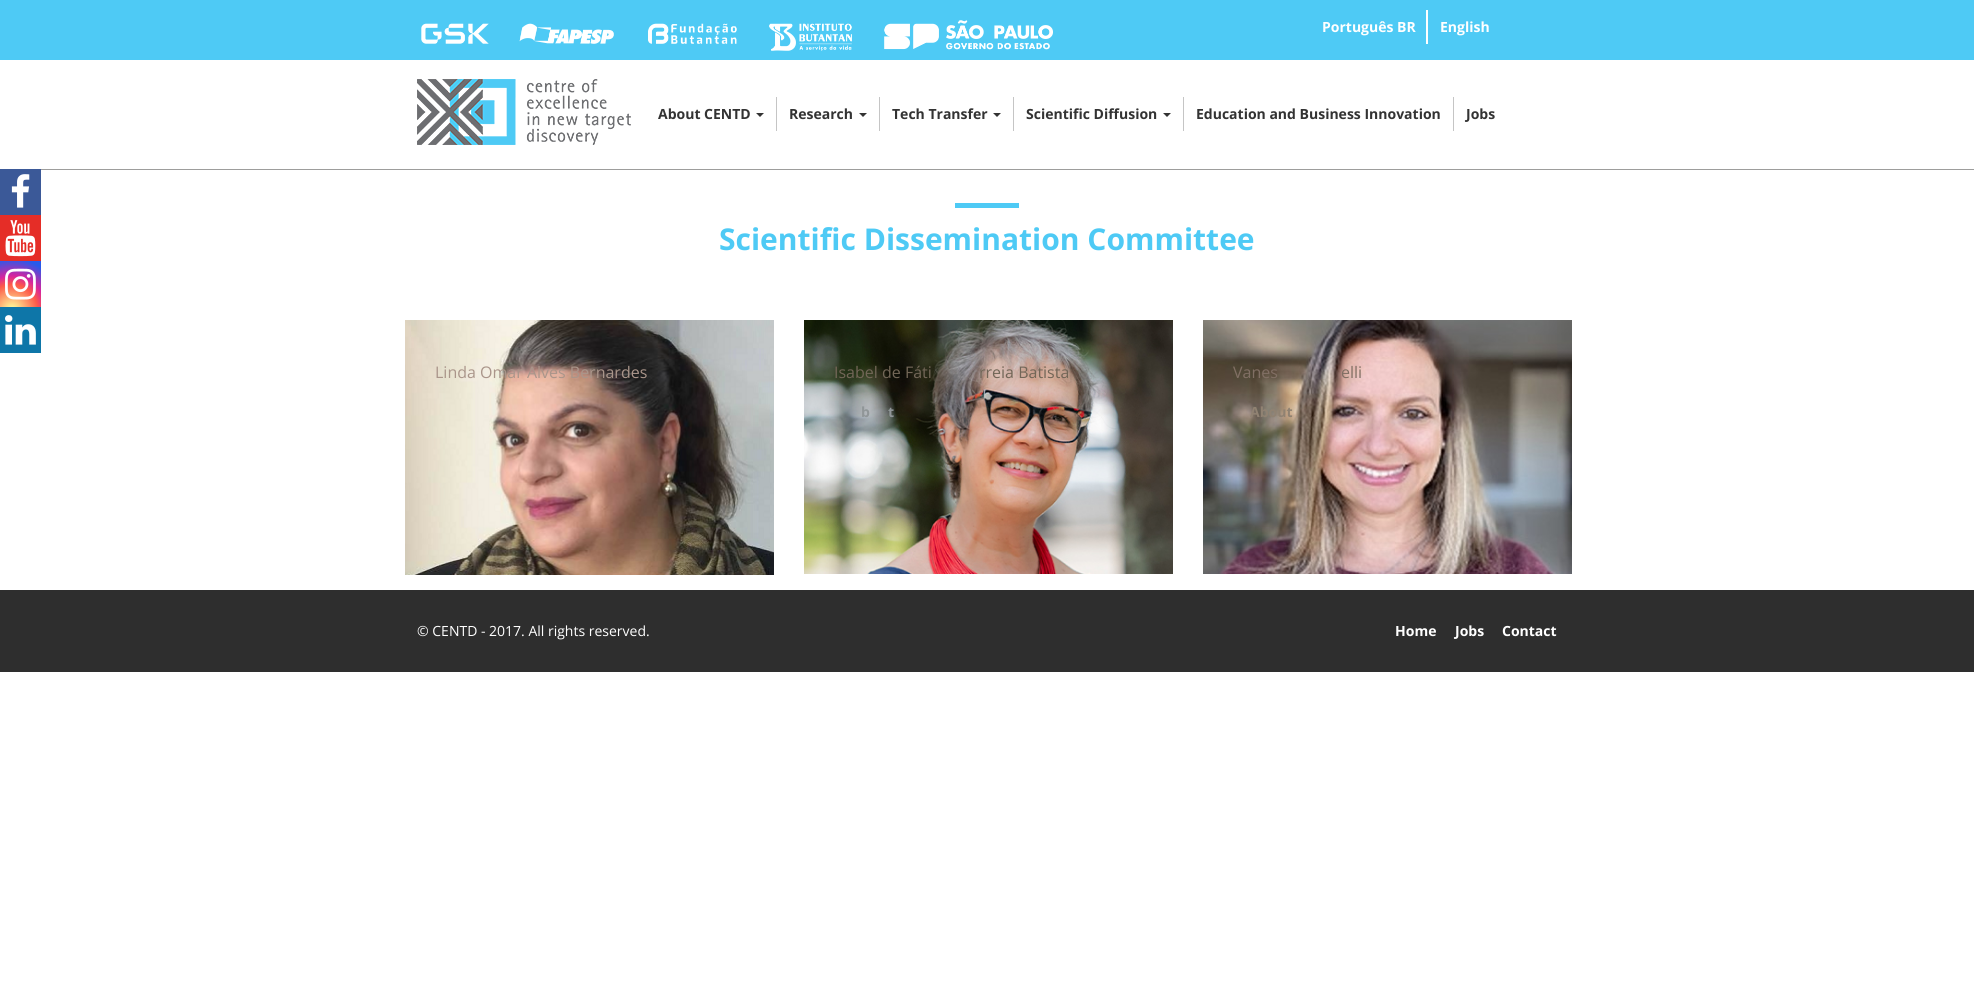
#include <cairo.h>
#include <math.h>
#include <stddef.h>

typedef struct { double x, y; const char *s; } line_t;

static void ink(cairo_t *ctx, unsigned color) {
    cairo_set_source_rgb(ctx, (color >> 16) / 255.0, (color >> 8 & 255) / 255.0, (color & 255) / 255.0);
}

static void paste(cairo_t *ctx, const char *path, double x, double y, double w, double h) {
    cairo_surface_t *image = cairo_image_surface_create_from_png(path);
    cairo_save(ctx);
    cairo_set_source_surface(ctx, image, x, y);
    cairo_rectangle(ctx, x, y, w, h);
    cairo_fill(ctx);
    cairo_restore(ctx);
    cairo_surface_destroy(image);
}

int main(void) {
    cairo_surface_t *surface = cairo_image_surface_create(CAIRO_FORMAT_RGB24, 1974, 994);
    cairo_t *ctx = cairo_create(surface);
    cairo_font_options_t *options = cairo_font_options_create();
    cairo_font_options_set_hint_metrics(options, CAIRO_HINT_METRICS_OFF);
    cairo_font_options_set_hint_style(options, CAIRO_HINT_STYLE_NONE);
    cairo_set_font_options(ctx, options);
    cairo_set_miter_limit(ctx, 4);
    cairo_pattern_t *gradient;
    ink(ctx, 0xFFFFFF);
    cairo_paint(ctx);
    ink(ctx, 0x4ECAF5);
    cairo_rectangle(ctx, 0, 0, 1974, 60);
    cairo_fill(ctx);
    paste(ctx, "media/1.png", 421, 20, 632, 31);
    cairo_select_font_face(ctx, "Open Sans", CAIRO_FONT_SLANT_NORMAL, CAIRO_FONT_WEIGHT_BOLD);
    cairo_set_font_size(ctx, 14);
    ink(ctx, 0xFFFFFF);
    cairo_move_to(ctx, 1322, 32);
    cairo_show_text(ctx, "Português BR");
    cairo_rectangle(ctx, 1426, 10, 2, 34);
    cairo_fill(ctx);
    cairo_move_to(ctx, 1440, 32);
    cairo_show_text(ctx, "English");
    paste(ctx, "media/2.png", 417, 79, 214, 66);
    ink(ctx, 0xC5C5C5);
    cairo_rectangle(ctx, 776, 97, 1, 34);
    cairo_fill(ctx);
    ink(ctx, 0x333333);
    cairo_move_to(ctx, 658, 119);
    cairo_show_text(ctx, "About CENTD");
    cairo_new_path(ctx);
    cairo_move_to(ctx, 756, 113);
    cairo_line_to(ctx, 764, 113);
    cairo_line_to(ctx, 760, 117);
    cairo_close_path(ctx);
    cairo_fill(ctx);
    ink(ctx, 0xC5C5C5);
    cairo_rectangle(ctx, 879, 97, 1, 34);
    cairo_fill(ctx);
    ink(ctx, 0x333333);
    cairo_move_to(ctx, 789, 119);
    cairo_show_text(ctx, "Research");
    cairo_new_path(ctx);
    cairo_move_to(ctx, 859, 113);
    cairo_line_to(ctx, 867, 113);
    cairo_line_to(ctx, 863, 117);
    cairo_close_path(ctx);
    cairo_fill(ctx);
    ink(ctx, 0xC5C5C5);
    cairo_rectangle(ctx, 1013, 97, 1, 34);
    cairo_fill(ctx);
    ink(ctx, 0x333333);
    cairo_move_to(ctx, 892, 119);
    cairo_show_text(ctx, "Tech Transfer");
    cairo_new_path(ctx);
    cairo_move_to(ctx, 993, 113);
    cairo_line_to(ctx, 1001, 113);
    cairo_line_to(ctx, 997, 117);
    cairo_close_path(ctx);
    cairo_fill(ctx);
    ink(ctx, 0xC5C5C5);
    cairo_rectangle(ctx, 1183, 97, 1, 34);
    cairo_fill(ctx);
    ink(ctx, 0x333333);
    cairo_move_to(ctx, 1026, 119);
    cairo_show_text(ctx, "Scientific Diffusion");
    cairo_new_path(ctx);
    cairo_move_to(ctx, 1163, 113);
    cairo_line_to(ctx, 1171, 113);
    cairo_line_to(ctx, 1167, 117);
    cairo_close_path(ctx);
    cairo_fill(ctx);
    ink(ctx, 0xC5C5C5);
    cairo_rectangle(ctx, 1453, 97, 1, 34);
    cairo_fill(ctx);
    ink(ctx, 0x333333);
    cairo_move_to(ctx, 1196, 119);
    cairo_show_text(ctx, "Education and Business Innovation");
    cairo_move_to(ctx, 1466, 119);
    cairo_show_text(ctx, "Jobs");
    ink(ctx, 0x3B5998);
    cairo_rectangle(ctx, 0, 169, 41, 46);
    cairo_fill(ctx);
    paste(ctx, "media/3.png", 11, 174, 19, 34);
    ink(ctx, 0xE52D27);
    cairo_rectangle(ctx, 0, 215, 41, 46);
    cairo_fill(ctx);
    paste(ctx, "media/4.png", 5, 220, 31, 37);
    gradient = cairo_pattern_create_radial(12, 310, 0, 12, 310, 57);
    cairo_pattern_add_color_stop_rgba(gradient, 0, 0.992, 0.957, 0.592, 1);
    cairo_pattern_add_color_stop_rgba(gradient, 0.05, 0.992, 0.957, 0.592, 1);
    cairo_pattern_add_color_stop_rgba(gradient, 0.45, 0.992, 0.349, 0.286, 1);
    cairo_pattern_add_color_stop_rgba(gradient, 0.6, 0.839, 0.141, 0.624, 1);
    cairo_pattern_add_color_stop_rgba(gradient, 0.9, 0.157, 0.353, 0.922, 1);
    cairo_set_source(ctx, gradient);
    cairo_pattern_destroy(gradient);
    cairo_rectangle(ctx, 0, 261, 41, 46);
    cairo_fill(ctx);
    paste(ctx, "media/5.png", 5, 268, 31, 32);
    ink(ctx, 0x0E76A8);
    cairo_rectangle(ctx, 0, 307, 41, 46);
    cairo_fill(ctx);
    paste(ctx, "media/6.png", 5, 315, 31, 30);
    ink(ctx, 0x9D9D9C);
    cairo_rectangle(ctx, 41, 169, 1933, 1);
    cairo_fill(ctx);
    ink(ctx, 0x4ECAF5);
    cairo_rectangle(ctx, 955, 203, 64, 5);
    cairo_fill(ctx);
    cairo_set_font_size(ctx, 30);
    cairo_move_to(ctx, 719, 250);
    cairo_show_text(ctx, "Scientific Dissemination Committee");
    paste(ctx, "media/7.png", 405, 320, 369, 255);
    cairo_select_font_face(ctx, "Open Sans", CAIRO_FONT_SLANT_NORMAL, CAIRO_FONT_WEIGHT_NORMAL);
    cairo_set_font_size(ctx, 16);
    ink(ctx, 0xAA958A);
    cairo_move_to(ctx, 435, 378);
    cairo_show_text(ctx, "Linda Omar Alves Bernardes");
    paste(ctx, "media/8.png", 804, 320, 369, 254);
    ink(ctx, 0x726657);
    cairo_move_to(ctx, 834, 378);
    cairo_show_text(ctx, "Isabel de Fáti");
    cairo_move_to(ctx, 979, 378);
    cairo_show_text(ctx, "rreia Batista");
    cairo_select_font_face(ctx, "Open Sans", CAIRO_FONT_SLANT_NORMAL, CAIRO_FONT_WEIGHT_BOLD);
    cairo_set_font_size(ctx, 14);
    ink(ctx, 0x909698);
    cairo_move_to(ctx, 861, 417);
    cairo_show_text(ctx, "b");
    cairo_move_to(ctx, 888, 417);
    cairo_show_text(ctx, "t");
    paste(ctx, "media/9.png", 1203, 320, 369, 254);
    cairo_select_font_face(ctx, "Open Sans", CAIRO_FONT_SLANT_NORMAL, CAIRO_FONT_WEIGHT_NORMAL);
    cairo_set_font_size(ctx, 16);
    ink(ctx, 0x816F64);
    cairo_move_to(ctx, 1233, 378);
    cairo_show_text(ctx, "Vanes");
    cairo_move_to(ctx, 1341, 378);
    cairo_show_text(ctx, "elli");
    cairo_select_font_face(ctx, "Open Sans", CAIRO_FONT_SLANT_NORMAL, CAIRO_FONT_WEIGHT_BOLD);
    cairo_set_font_size(ctx, 14);
    ink(ctx, 0x908272);
    cairo_move_to(ctx, 1250, 417);
    cairo_show_text(ctx, "About");
    ink(ctx, 0x2E2E2E);
    cairo_rectangle(ctx, 0, 590, 1974, 82);
    cairo_fill(ctx);
    cairo_select_font_face(ctx, "Open Sans", CAIRO_FONT_SLANT_NORMAL, CAIRO_FONT_WEIGHT_NORMAL);
    ink(ctx, 0xFFFFFF);
    cairo_move_to(ctx, 417, 636);
    cairo_show_text(ctx, "© CENTD - 2017. All rights reserved.");
    cairo_select_font_face(ctx, "Open Sans", CAIRO_FONT_SLANT_NORMAL, CAIRO_FONT_WEIGHT_BOLD);
    {
        static const line_t items[] = {
            {1395, 636, "Home"},
            {1455, 636, "Jobs"},
            {1502, 636, "Contact"},
        };
        for (size_t i = 0; i < sizeof items / sizeof *items; i++) {
            cairo_move_to(ctx, items[i].x, items[i].y);
            cairo_show_text(ctx, items[i].s);
        }
    }
    cairo_surface_write_to_png(surface, "image.png");
    cairo_font_options_destroy(options);
    cairo_destroy(ctx);
    cairo_surface_destroy(surface);
    return 0;
}
